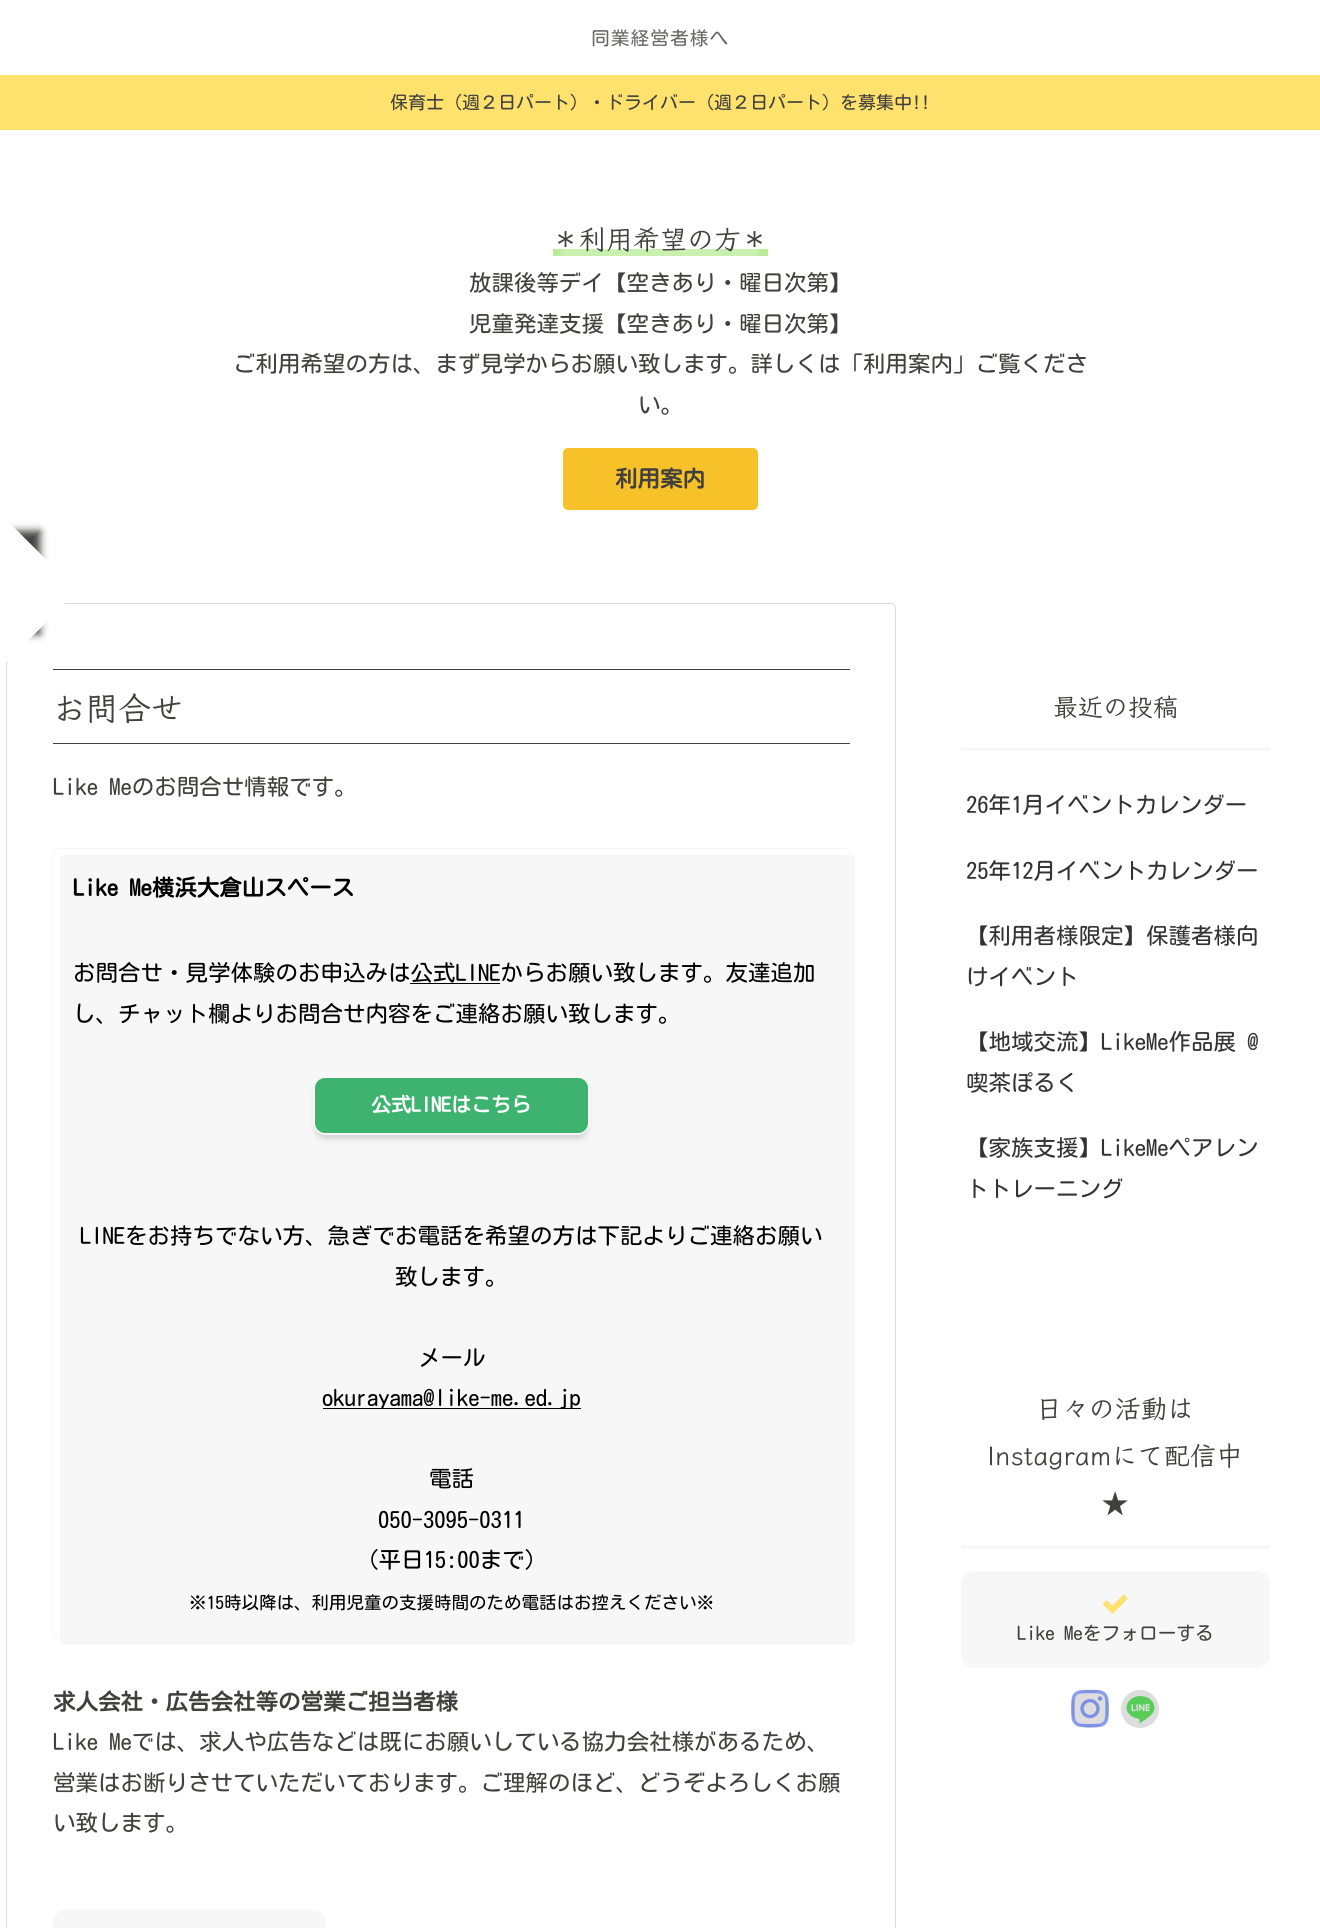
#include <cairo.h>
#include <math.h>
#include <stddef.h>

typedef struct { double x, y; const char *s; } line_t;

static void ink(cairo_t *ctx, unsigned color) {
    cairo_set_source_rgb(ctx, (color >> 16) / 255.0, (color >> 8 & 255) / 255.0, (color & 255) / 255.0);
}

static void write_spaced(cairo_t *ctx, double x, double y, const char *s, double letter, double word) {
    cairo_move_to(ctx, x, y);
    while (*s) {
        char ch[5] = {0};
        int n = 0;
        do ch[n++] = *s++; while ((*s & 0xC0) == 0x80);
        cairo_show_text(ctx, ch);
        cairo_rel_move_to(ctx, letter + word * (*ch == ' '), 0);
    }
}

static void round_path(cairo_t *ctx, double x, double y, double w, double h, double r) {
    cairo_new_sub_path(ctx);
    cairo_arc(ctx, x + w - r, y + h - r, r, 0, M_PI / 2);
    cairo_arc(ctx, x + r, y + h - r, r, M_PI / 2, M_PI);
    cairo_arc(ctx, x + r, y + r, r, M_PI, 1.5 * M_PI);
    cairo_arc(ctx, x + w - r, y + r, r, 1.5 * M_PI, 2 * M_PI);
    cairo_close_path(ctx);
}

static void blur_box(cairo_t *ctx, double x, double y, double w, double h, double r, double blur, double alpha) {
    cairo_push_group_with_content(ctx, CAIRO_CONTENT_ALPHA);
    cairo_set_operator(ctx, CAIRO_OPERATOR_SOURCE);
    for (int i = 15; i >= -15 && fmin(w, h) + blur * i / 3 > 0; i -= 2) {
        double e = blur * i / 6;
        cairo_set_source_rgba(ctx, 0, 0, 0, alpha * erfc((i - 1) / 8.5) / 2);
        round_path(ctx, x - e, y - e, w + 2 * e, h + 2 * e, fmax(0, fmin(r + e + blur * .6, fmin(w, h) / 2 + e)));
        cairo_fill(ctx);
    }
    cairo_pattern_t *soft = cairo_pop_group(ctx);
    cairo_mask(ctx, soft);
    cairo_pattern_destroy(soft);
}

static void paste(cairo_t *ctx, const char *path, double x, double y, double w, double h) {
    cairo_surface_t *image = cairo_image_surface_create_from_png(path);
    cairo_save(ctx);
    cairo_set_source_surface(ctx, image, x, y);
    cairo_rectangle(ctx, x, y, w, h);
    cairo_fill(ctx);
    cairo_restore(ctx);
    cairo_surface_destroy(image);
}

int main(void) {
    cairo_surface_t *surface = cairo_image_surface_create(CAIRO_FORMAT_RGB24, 1320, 1928);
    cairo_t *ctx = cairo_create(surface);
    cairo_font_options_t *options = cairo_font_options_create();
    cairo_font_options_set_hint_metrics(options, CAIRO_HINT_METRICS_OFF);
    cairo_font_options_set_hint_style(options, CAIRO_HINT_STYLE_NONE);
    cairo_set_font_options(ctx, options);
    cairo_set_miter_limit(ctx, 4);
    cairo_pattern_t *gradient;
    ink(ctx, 0xFFFFFF);
    cairo_paint(ctx);
    cairo_select_font_face(ctx, "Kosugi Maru", CAIRO_FONT_SLANT_NORMAL, CAIRO_FONT_WEIGHT_NORMAL);
    cairo_set_font_size(ctx, 18.75);
    ink(ctx, 0x696867);
    write_spaced(ctx, 591, 45, "同業経営者様へ", 1, 0);
    ink(ctx, 0xFFE16E);
    cairo_rectangle(ctx, 0, 75, 1320, 55);
    cairo_fill(ctx);
    cairo_set_font_size(ctx, 18);
    ink(ctx, 0x41403E);
    cairo_move_to(ctx, 390, 109);
    cairo_show_text(ctx, "保育士（週２日パート）・ドライバー（週２日パート）を募集中!!");
    gradient = cairo_pattern_create_linear(768, 252, 553, 252);
    cairo_pattern_add_color_stop_rgba(gradient, 0.03, 0.729, 0.922, 0.6, 1);
    cairo_pattern_add_color_stop_rgba(gradient, 0.06, 0.792, 0.941, 0.69, 1);
    cairo_set_source(ctx, gradient);
    cairo_pattern_destroy(gradient);
    cairo_rectangle(ctx, 553, 249, 215, 7);
    cairo_fill(ctx);
    gradient = cairo_pattern_create_linear(553, 252, 768, 252);
    cairo_pattern_add_color_stop_rgba(gradient, 0.02, 0.584, 0.878, 0.38, 0.3);
    cairo_pattern_add_color_stop_rgba(gradient, 0.06, 0.584, 0.878, 0.38, 0);
    cairo_set_source(ctx, gradient);
    cairo_pattern_destroy(gradient);
    cairo_rectangle(ctx, 553, 249, 12, 7);
    cairo_fill(ctx);
    cairo_select_font_face(ctx, "Klee One SemiBold", CAIRO_FONT_SLANT_NORMAL, CAIRO_FONT_WEIGHT_NORMAL);
    cairo_set_font_size(ctx, 27);
    ink(ctx, 0x41403E);
    cairo_move_to(ctx, 552, 249);
    cairo_show_text(ctx, "＊利用希望の方＊");
    cairo_select_font_face(ctx, "Kosugi Maru", CAIRO_FONT_SLANT_NORMAL, CAIRO_FONT_WEIGHT_NORMAL);
    cairo_set_font_size(ctx, 22.5);
    {
        static const line_t items[] = {
            {469, 291, "放課後等デイ【空きあり・曜日次第】"},
            {469, 332, "児童発達支援【空きあり・曜日次第】"},
            {233, 372, "ご利用希望の方は、まず見学からお願い致します。詳しくは「利用案内」ご覧くださ"},
            {638, 413, "い。"},
        };
        for (size_t i = 0; i < sizeof items / sizeof *items; i++) {
            cairo_move_to(ctx, items[i].x, items[i].y);
            cairo_show_text(ctx, items[i].s);
        }
    }
    ink(ctx, 0xF7C229);
    round_path(ctx, 563, 448, 195, 62, 5);
    cairo_fill(ctx);
    cairo_select_font_face(ctx, "Kosugi Maru", CAIRO_FONT_SLANT_NORMAL, CAIRO_FONT_WEIGHT_BOLD);
    ink(ctx, 0x41403E);
    cairo_move_to(ctx, 615, 487);
    cairo_show_text(ctx, "利用案内");
    round_path(ctx, 6.5, 603.5, 889, 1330, 4.5);
    ink(ctx, 0xDDDDDD);
    cairo_set_line_width(ctx, 1);
    cairo_stroke(ctx);
    cairo_save(ctx);
    cairo_set_fill_rule(ctx, CAIRO_FILL_RULE_EVEN_ODD);
    cairo_new_path(ctx);
    cairo_move_to(ctx, 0, 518);
    cairo_line_to(ctx, 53, 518);
    cairo_line_to(ctx, 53, 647);
    cairo_line_to(ctx, 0, 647);
    cairo_close_path(ctx);
    cairo_move_to(ctx, 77.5, 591);
    cairo_line_to(ctx, -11, 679.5);
    cairo_line_to(ctx, -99.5, 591);
    cairo_line_to(ctx, -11, 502.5);
    cairo_close_path(ctx);
    cairo_clip(ctx);
    ink(ctx, 0x41403E);
    blur_box(ctx, -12, 531, 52, 103, 0, 4, 1);
    cairo_restore(ctx);
    ink(ctx, 0xFFFFFF);
    cairo_new_path(ctx);
    cairo_move_to(ctx, 77, 591);
    cairo_line_to(ctx, -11, 679);
    cairo_line_to(ctx, -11, 591);
    cairo_close_path(ctx);
    cairo_fill(ctx);
    ink(ctx, 0x41403E);
    cairo_rectangle(ctx, 53, 669, 797, 1);
    cairo_fill(ctx);
    cairo_rectangle(ctx, 53, 743, 797, 1);
    cairo_fill(ctx);
    cairo_select_font_face(ctx, "Klee One SemiBold", CAIRO_FONT_SLANT_NORMAL, CAIRO_FONT_WEIGHT_NORMAL);
    cairo_set_font_size(ctx, 32.5);
    cairo_move_to(ctx, 53, 720);
    cairo_show_text(ctx, "お問合せ");
    cairo_select_font_face(ctx, "Kosugi Maru", CAIRO_FONT_SLANT_NORMAL, CAIRO_FONT_WEIGHT_NORMAL);
    cairo_set_font_size(ctx, 22.5);
    cairo_move_to(ctx, 53, 795);
    cairo_show_text(ctx, "Like Meのお問合せ情報です。");
    ink(ctx, 0xF7F7F7);
    round_path(ctx, 60, 855, 795, 790, 5);
    cairo_fill(ctx);
    round_path(ctx, 53.5, 848.5, 796, 791, 4.5);
    cairo_stroke(ctx);
    cairo_select_font_face(ctx, "Kosugi Maru", CAIRO_FONT_SLANT_NORMAL, CAIRO_FONT_WEIGHT_BOLD);
    ink(ctx, 0x000000);
    cairo_move_to(ctx, 73, 896);
    cairo_show_text(ctx, "Like Me横浜大倉山スペース");
    cairo_select_font_face(ctx, "Kosugi Maru", CAIRO_FONT_SLANT_NORMAL, CAIRO_FONT_WEIGHT_NORMAL);
    cairo_move_to(ctx, 73, 981);
    cairo_show_text(ctx, "お問合せ・見学体験のお申込みは公式LINEからお願い致します。友達追加");
    cairo_rectangle(ctx, 410, 983, 90, 1);
    cairo_fill(ctx);
    cairo_move_to(ctx, 73, 1022);
    cairo_show_text(ctx, "し、チャット欄よりお問合せ内容をご連絡お願い致します。");
    cairo_save(ctx);
    cairo_set_fill_rule(ctx, CAIRO_FILL_RULE_EVEN_ODD);
    cairo_new_path(ctx);
    cairo_move_to(ctx, 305, 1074);
    cairo_line_to(ctx, 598, 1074);
    cairo_line_to(ctx, 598, 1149);
    cairo_line_to(ctx, 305, 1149);
    cairo_close_path(ctx);
    cairo_move_to(ctx, 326, 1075);
    cairo_line_to(ctx, 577, 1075);
    cairo_curve_to(ctx, 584, 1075, 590, 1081, 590, 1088);
    cairo_line_to(ctx, 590, 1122);
    cairo_curve_to(ctx, 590, 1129, 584, 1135, 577, 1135);
    cairo_line_to(ctx, 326, 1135);
    cairo_curve_to(ctx, 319, 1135, 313, 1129, 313, 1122);
    cairo_line_to(ctx, 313, 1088);
    cairo_curve_to(ctx, 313, 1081, 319, 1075, 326, 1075);
    cairo_close_path(ctx);
    cairo_clip(ctx);
    ink(ctx, 0x41403E);
    blur_box(ctx, 315, 1084, 273, 55, 10, 3, 0.2);
    cairo_restore(ctx);
    ink(ctx, 0x3EB370);
    round_path(ctx, 315, 1078, 273, 55, 10);
    cairo_fill(ctx);
    cairo_select_font_face(ctx, "Kosugi Maru", CAIRO_FONT_SLANT_NORMAL, CAIRO_FONT_WEIGHT_BOLD);
    cairo_set_font_size(ctx, 20);
    ink(ctx, 0xFFFFFF);
    cairo_move_to(ctx, 371, 1112);
    cairo_show_text(ctx, "公式LINEはこちら");
    cairo_select_font_face(ctx, "Kosugi Maru", CAIRO_FONT_SLANT_NORMAL, CAIRO_FONT_WEIGHT_NORMAL);
    cairo_set_font_size(ctx, 22.5);
    ink(ctx, 0x000000);
    {
        static const line_t items[] = {
            {80, 1244, "LINEをお持ちでない方、急ぎでお電話を希望の方は下記よりご連絡お願い"},
            {395, 1285, "致します。"},
            {418, 1366, "メール"},
        };
        for (size_t i = 0; i < sizeof items / sizeof *items; i++) {
            cairo_move_to(ctx, items[i].x, items[i].y);
            cairo_show_text(ctx, items[i].s);
        }
    }
    cairo_rectangle(ctx, 323, 1408, 258, 1);
    cairo_fill(ctx);
    {
        static const line_t items[] = {
            {322, 1406, "okurayama@like-me.ed.jp"},
            {429, 1487, "電話"},
            {378, 1528, "050-3095-0311"},
            {356, 1568, "（平日15:00まで）"},
        };
        for (size_t i = 0; i < sizeof items / sizeof *items; i++) {
            cairo_move_to(ctx, items[i].x, items[i].y);
            cairo_show_text(ctx, items[i].s);
        }
    }
    cairo_set_font_size(ctx, 17.5);
    cairo_move_to(ctx, 189, 1609);
    cairo_show_text(ctx, "※15時以降は、利用児童の支援時間のため電話はお控えください※");
    cairo_select_font_face(ctx, "Kosugi Maru", CAIRO_FONT_SLANT_NORMAL, CAIRO_FONT_WEIGHT_BOLD);
    cairo_set_font_size(ctx, 22.5);
    ink(ctx, 0x41403E);
    cairo_move_to(ctx, 53, 1710);
    cairo_show_text(ctx, "求人会社・広告会社等の営業ご担当者様");
    cairo_select_font_face(ctx, "Kosugi Maru", CAIRO_FONT_SLANT_NORMAL, CAIRO_FONT_WEIGHT_NORMAL);
    {
        static const line_t items[] = {
            {53, 1750, "Like Meでは、求人や広告などは既にお願いしている協力会社様があるため、"},
            {53, 1791, "営業はお断りさせていただいております。ご理解のほど、どうぞよろしくお願"},
            {53, 1831, "い致します。"},
        };
        for (size_t i = 0; i < sizeof items / sizeof *items; i++) {
            cairo_move_to(ctx, items[i].x, items[i].y);
            cairo_show_text(ctx, items[i].s);
        }
    }
    ink(ctx, 0xF7F7F7);
    round_path(ctx, 53, 1910, 273, 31, 13);
    cairo_fill(ctx);
    cairo_new_path(ctx);
    cairo_move_to(ctx, 961, 677);
    cairo_line_to(ctx, 961, 751);
    cairo_line_to(ctx, 1270, 751);
    cairo_line_to(ctx, 1270, 748);
    cairo_line_to(ctx, 961, 748);
    cairo_close_path(ctx);
    cairo_fill(ctx);
    cairo_select_font_face(ctx, "Klee One SemiBold", CAIRO_FONT_SLANT_NORMAL, CAIRO_FONT_WEIGHT_NORMAL);
    cairo_set_font_size(ctx, 25);
    ink(ctx, 0x41403E);
    cairo_move_to(ctx, 1053, 716);
    cairo_show_text(ctx, "最近の投稿");
    cairo_select_font_face(ctx, "Kosugi Maru", CAIRO_FONT_SLANT_NORMAL, CAIRO_FONT_WEIGHT_NORMAL);
    cairo_set_font_size(ctx, 22.5);
    ink(ctx, 0x333333);
    {
        static const line_t items[] = {
            {966, 813, "26年1月イベントカレンダー"},
            {966, 879, "25年12月イベントカレンダー"},
            {966, 944, "【利用者様限定】保護者様向"},
            {966, 985, "けイベント"},
            {966, 1050, "【地域交流】LikeMe作品展 @"},
            {966, 1091, "喫茶ぽるく"},
            {966, 1156, "【家族支援】LikeMeペアレン"},
            {966, 1197, "トトレーニング"},
        };
        for (size_t i = 0; i < sizeof items / sizeof *items; i++) {
            cairo_move_to(ctx, items[i].x, items[i].y);
            cairo_show_text(ctx, items[i].s);
        }
    }
    ink(ctx, 0xF7F7F7);
    cairo_new_path(ctx);
    cairo_move_to(ctx, 961, 1377);
    cairo_line_to(ctx, 961, 1549);
    cairo_line_to(ctx, 1270, 1549);
    cairo_line_to(ctx, 1270, 1545);
    cairo_line_to(ctx, 961, 1545);
    cairo_close_path(ctx);
    cairo_fill(ctx);
    cairo_select_font_face(ctx, "Klee One SemiBold", CAIRO_FONT_SLANT_NORMAL, CAIRO_FONT_WEIGHT_NORMAL);
    cairo_set_font_size(ctx, 26.25);
    ink(ctx, 0x41403E);
    {
        static const line_t items[] = {
            {1036, 1418, "日々の活動は"},
            {987, 1465, "Instagramにて配信中"},
            {1102, 1513, "★"},
        };
        for (size_t i = 0; i < sizeof items / sizeof *items; i++) {
            cairo_move_to(ctx, items[i].x, items[i].y);
            cairo_show_text(ctx, items[i].s);
        }
    }
    ink(ctx, 0xF7F7F7);
    round_path(ctx, 961, 1571, 309, 97, 13);
    cairo_fill(ctx);
    paste(ctx, "media/1.png", 1103, 1594, 25, 20);
    cairo_select_font_face(ctx, "Kosugi Maru", CAIRO_FONT_SLANT_NORMAL, CAIRO_FONT_WEIGHT_NORMAL);
    cairo_set_font_size(ctx, 18.75);
    ink(ctx, 0x41403E);
    cairo_move_to(ctx, 1017, 1640);
    cairo_show_text(ctx, "Like Meをフォローする");
    ink(ctx, 0xDDDDDD);
    cairo_new_path(ctx);
    cairo_arc(ctx, 1090, 1709, 19.5, 0, 2 * M_PI);
    cairo_fill_preserve(ctx);
    ink(ctx, 0xFFFFFF);
    cairo_stroke(ctx);
    paste(ctx, "media/2.png", 1071, 1689, 38, 39);
    ink(ctx, 0xDDDDDD);
    cairo_arc(ctx, 1140, 1709, 19.5, 0, 2 * M_PI);
    cairo_fill_preserve(ctx);
    ink(ctx, 0xFFFFFF);
    cairo_stroke(ctx);
    paste(ctx, "media/3.png", 1126, 1696, 29, 27);
    cairo_surface_write_to_png(surface, "image.png");
    cairo_font_options_destroy(options);
    cairo_destroy(ctx);
    cairo_surface_destroy(surface);
    return 0;
}
